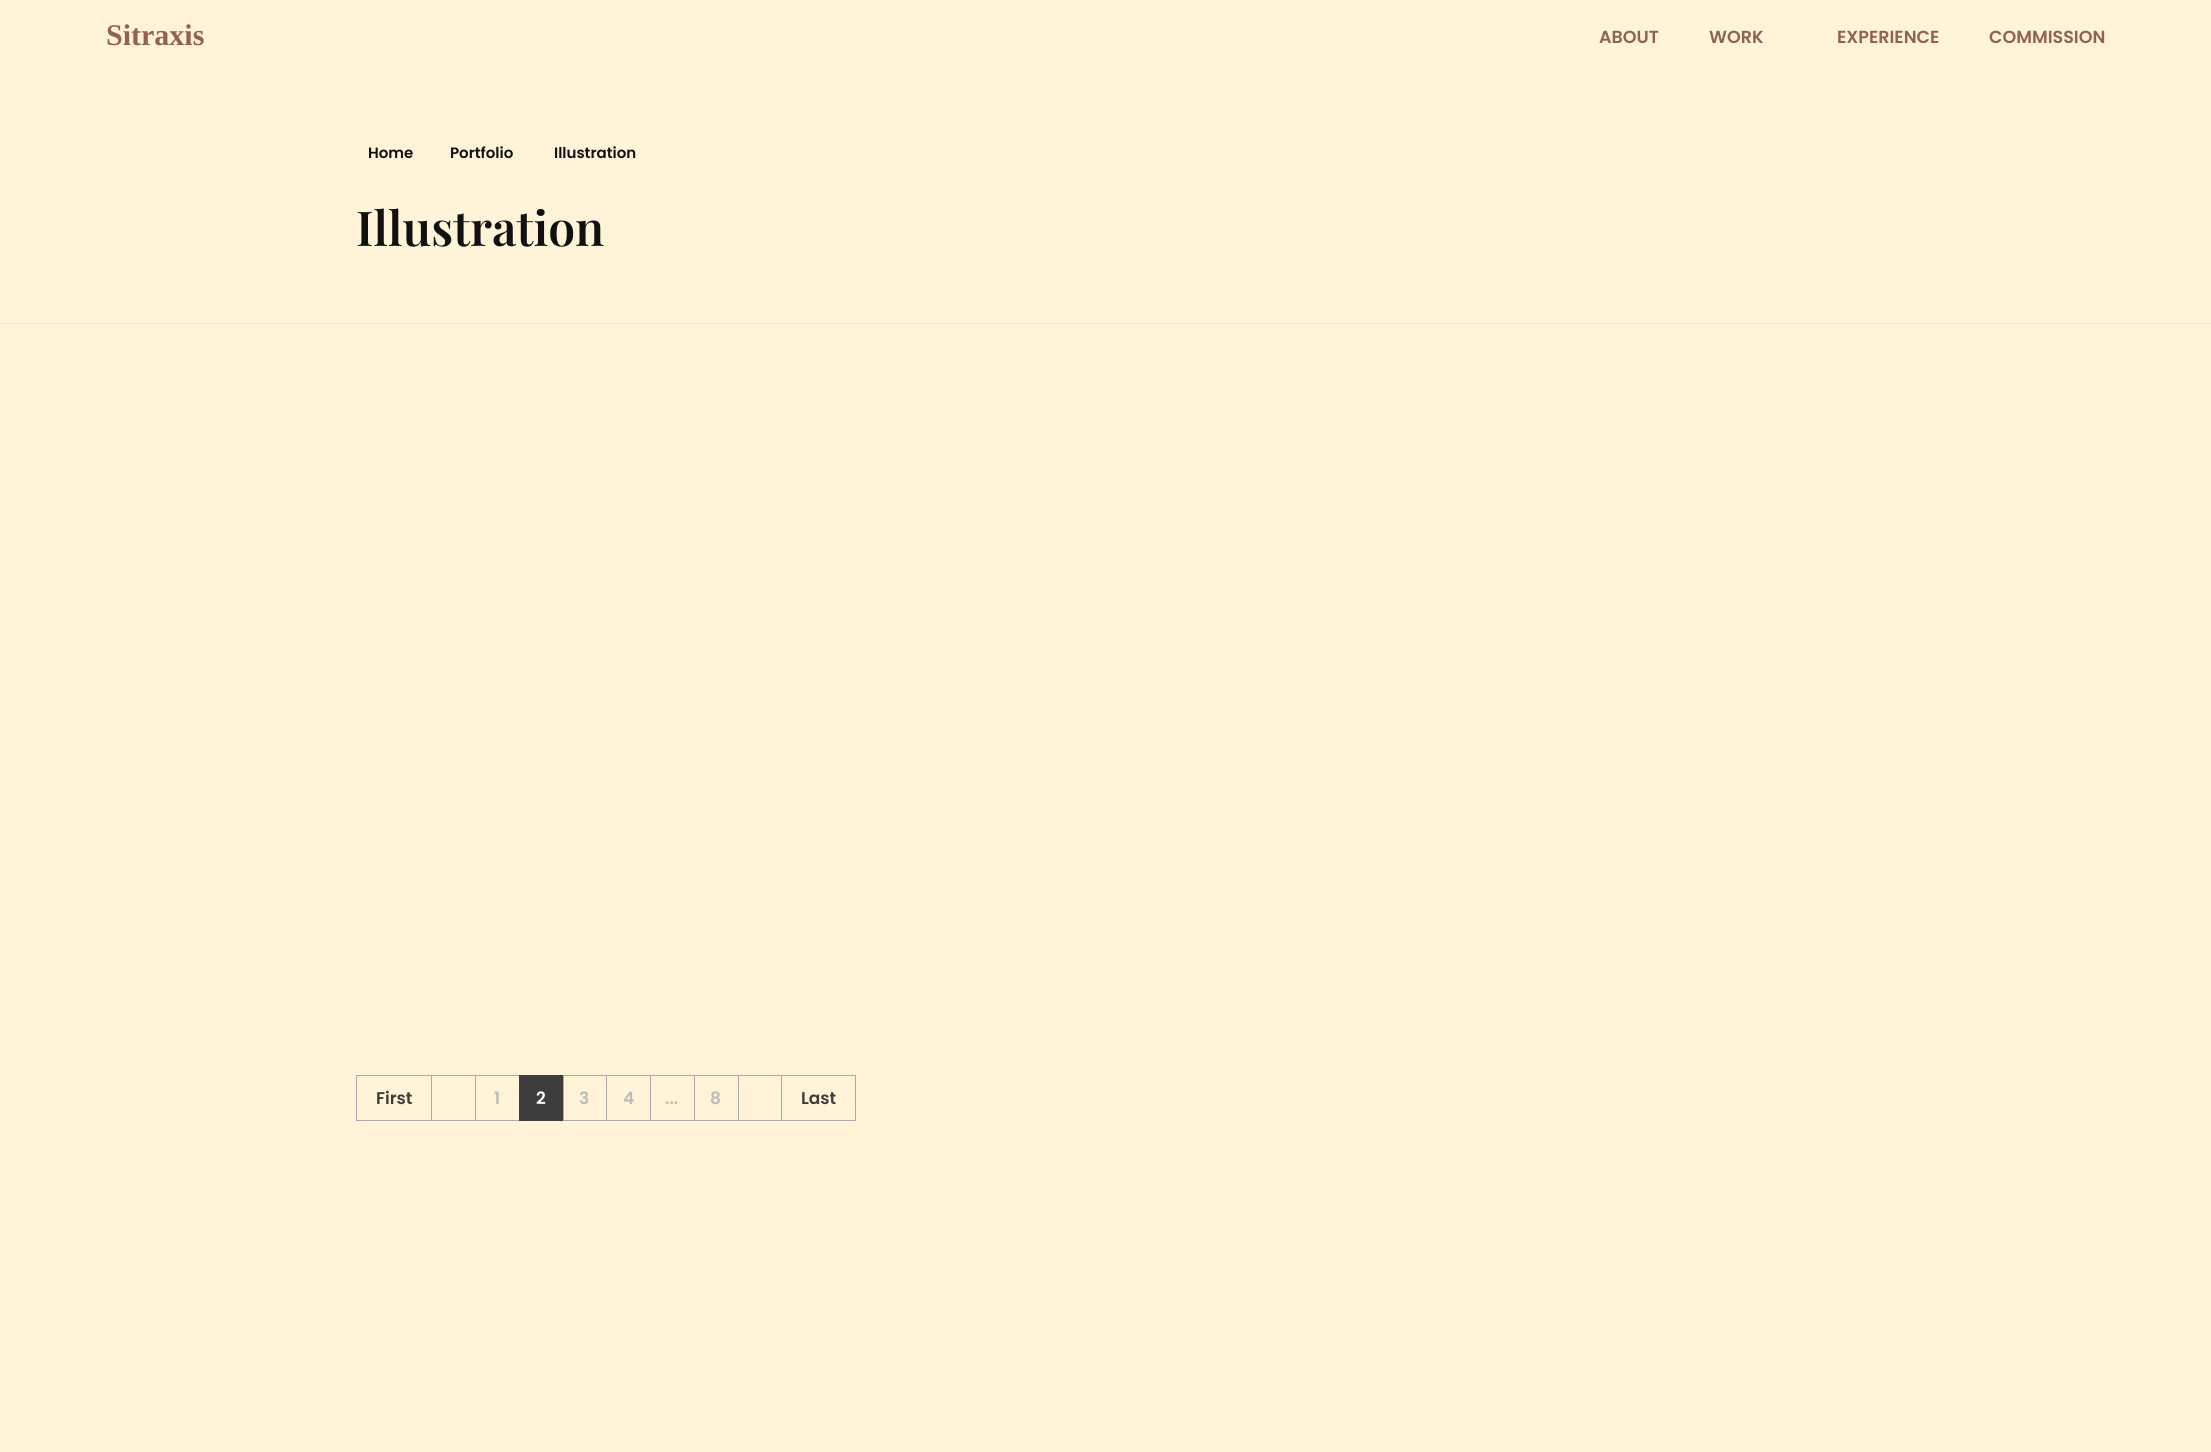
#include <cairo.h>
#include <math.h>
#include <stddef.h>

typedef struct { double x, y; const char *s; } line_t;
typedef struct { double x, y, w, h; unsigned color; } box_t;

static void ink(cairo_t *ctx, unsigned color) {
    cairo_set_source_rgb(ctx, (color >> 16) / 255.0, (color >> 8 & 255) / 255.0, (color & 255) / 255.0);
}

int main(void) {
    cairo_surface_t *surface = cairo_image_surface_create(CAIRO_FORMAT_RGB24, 2211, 1452);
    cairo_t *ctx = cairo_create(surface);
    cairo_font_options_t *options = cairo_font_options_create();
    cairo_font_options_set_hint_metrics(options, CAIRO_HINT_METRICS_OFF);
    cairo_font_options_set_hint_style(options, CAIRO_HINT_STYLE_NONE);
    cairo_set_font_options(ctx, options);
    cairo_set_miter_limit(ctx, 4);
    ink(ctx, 0xFFF4D8);
    cairo_paint(ctx);
    cairo_select_font_face(ctx, "Liberation Serif", CAIRO_FONT_SLANT_NORMAL, CAIRO_FONT_WEIGHT_BOLD);
    cairo_set_font_size(ctx, 30);
    ink(ctx, 0x93624F);
    cairo_move_to(ctx, 106, 45);
    cairo_show_text(ctx, "Sitraxis");
    cairo_select_font_face(ctx, "Poppins SemiBold", CAIRO_FONT_SLANT_NORMAL, CAIRO_FONT_WEIGHT_NORMAL);
    cairo_set_font_size(ctx, 17.5);
    {
        static const line_t items[] = {
            {1599, 43, "ABOUT"},
            {1709, 43, "WORK"},
            {1837, 43, "EXPERIENCE"},
            {1989, 43, "COMMISSION"},
        };
        for (size_t i = 0; i < sizeof items / sizeof *items; i++) {
            cairo_move_to(ctx, items[i].x, items[i].y);
            cairo_show_text(ctx, items[i].s);
        }
    }
    ink(ctx, 0xEAEAEA);
    cairo_rectangle(ctx, 0, 323, 2211, 1);
    cairo_fill(ctx);
    cairo_set_font_size(ctx, 15);
    ink(ctx, 0x111111);
    {
        static const line_t items[] = {
            {368, 158, "Home"},
            {450, 158, "Portfolio"},
            {554, 158, "Illustration"},
        };
        for (size_t i = 0; i < sizeof items / sizeof *items; i++) {
            cairo_move_to(ctx, items[i].x, items[i].y);
            cairo_show_text(ctx, items[i].s);
        }
    }
    cairo_select_font_face(ctx, "Playfair Display SemiBold", CAIRO_FONT_SLANT_NORMAL, CAIRO_FONT_WEIGHT_NORMAL);
    cairo_set_font_size(ctx, 48);
    cairo_move_to(ctx, 356, 246);
    cairo_show_text(ctx, "Illustration");
    {
        static const box_t items[] = {
            {356, 1075, 75, 1, 0xAAAAAA},
            {356, 1120, 75, 1, 0xAAAAAA},
            {356, 1075, 1, 46, 0xAAAAAA},
        };
        for (size_t i = 0; i < sizeof items / sizeof *items; i++) {
            ink(ctx, items[i].color);
            cairo_rectangle(ctx, items[i].x, items[i].y, items[i].w, items[i].h);
            cairo_fill(ctx);
        }
    }
    cairo_select_font_face(ctx, "Poppins SemiBold", CAIRO_FONT_SLANT_NORMAL, CAIRO_FONT_WEIGHT_NORMAL);
    cairo_set_font_size(ctx, 17);
    ink(ctx, 0x3D3D3D);
    cairo_move_to(ctx, 376, 1104);
    cairo_show_text(ctx, "First");
    {
        static const box_t items[] = {
            {431, 1075, 88, 1, 0xAAAAAA},
            {431, 1120, 88, 1, 0xAAAAAA},
            {431, 1075, 1, 46, 0xAAAAAA},
            {475, 1075, 1, 46, 0xAAAAAA},
        };
        for (size_t i = 0; i < sizeof items / sizeof *items; i++) {
            ink(ctx, items[i].color);
            cairo_rectangle(ctx, items[i].x, items[i].y, items[i].w, items[i].h);
            cairo_fill(ctx);
        }
    }
    ink(ctx, 0xBBBBBB);
    cairo_move_to(ctx, 494, 1104);
    cairo_show_text(ctx, "1");
    {
        static const box_t items[] = {
            {520, 1076, 43, 44, 0x3D3D3D},
            {519, 1075, 44, 1, 0x3D3D3D},
            {519, 1120, 44, 1, 0x3D3D3D},
            {519, 1075, 1, 46, 0x3D3D3D},
        };
        for (size_t i = 0; i < sizeof items / sizeof *items; i++) {
            ink(ctx, items[i].color);
            cairo_rectangle(ctx, items[i].x, items[i].y, items[i].w, items[i].h);
            cairo_fill(ctx);
        }
    }
    ink(ctx, 0xFFFFFF);
    cairo_move_to(ctx, 536, 1104);
    cairo_show_text(ctx, "2");
    {
        static const box_t items[] = {
            {563, 1075, 218, 1, 0xAAAAAA},
            {563, 1120, 218, 1, 0xAAAAAA},
            {563, 1075, 1, 46, 0xAAAAAA},
        };
        for (size_t i = 0; i < sizeof items / sizeof *items; i++) {
            ink(ctx, items[i].color);
            cairo_rectangle(ctx, items[i].x, items[i].y, items[i].w, items[i].h);
            cairo_fill(ctx);
        }
    }
    ink(ctx, 0xBBBBBB);
    cairo_move_to(ctx, 579, 1104);
    cairo_show_text(ctx, "3");
    ink(ctx, 0xAAAAAA);
    cairo_rectangle(ctx, 606, 1075, 1, 46);
    cairo_fill(ctx);
    ink(ctx, 0xBBBBBB);
    cairo_move_to(ctx, 623, 1104);
    cairo_show_text(ctx, "4");
    ink(ctx, 0xAAAAAA);
    cairo_rectangle(ctx, 650, 1075, 1, 46);
    cairo_fill(ctx);
    ink(ctx, 0xBBBBBB);
    cairo_move_to(ctx, 665, 1104);
    cairo_show_text(ctx, "...");
    ink(ctx, 0xAAAAAA);
    cairo_rectangle(ctx, 694, 1075, 1, 46);
    cairo_fill(ctx);
    ink(ctx, 0xBBBBBB);
    cairo_move_to(ctx, 710, 1104);
    cairo_show_text(ctx, "8");
    ink(ctx, 0xAAAAAA);
    cairo_rectangle(ctx, 738, 1075, 1, 46);
    cairo_fill(ctx);
    cairo_rectangle(ctx, 781.5, 1075.5, 74, 45);
    cairo_set_line_width(ctx, 1);
    cairo_stroke(ctx);
    ink(ctx, 0x3D3D3D);
    cairo_move_to(ctx, 801, 1104);
    cairo_show_text(ctx, "Last");
    cairo_surface_write_to_png(surface, "image.png");
    cairo_font_options_destroy(options);
    cairo_destroy(ctx);
    cairo_surface_destroy(surface);
    return 0;
}
